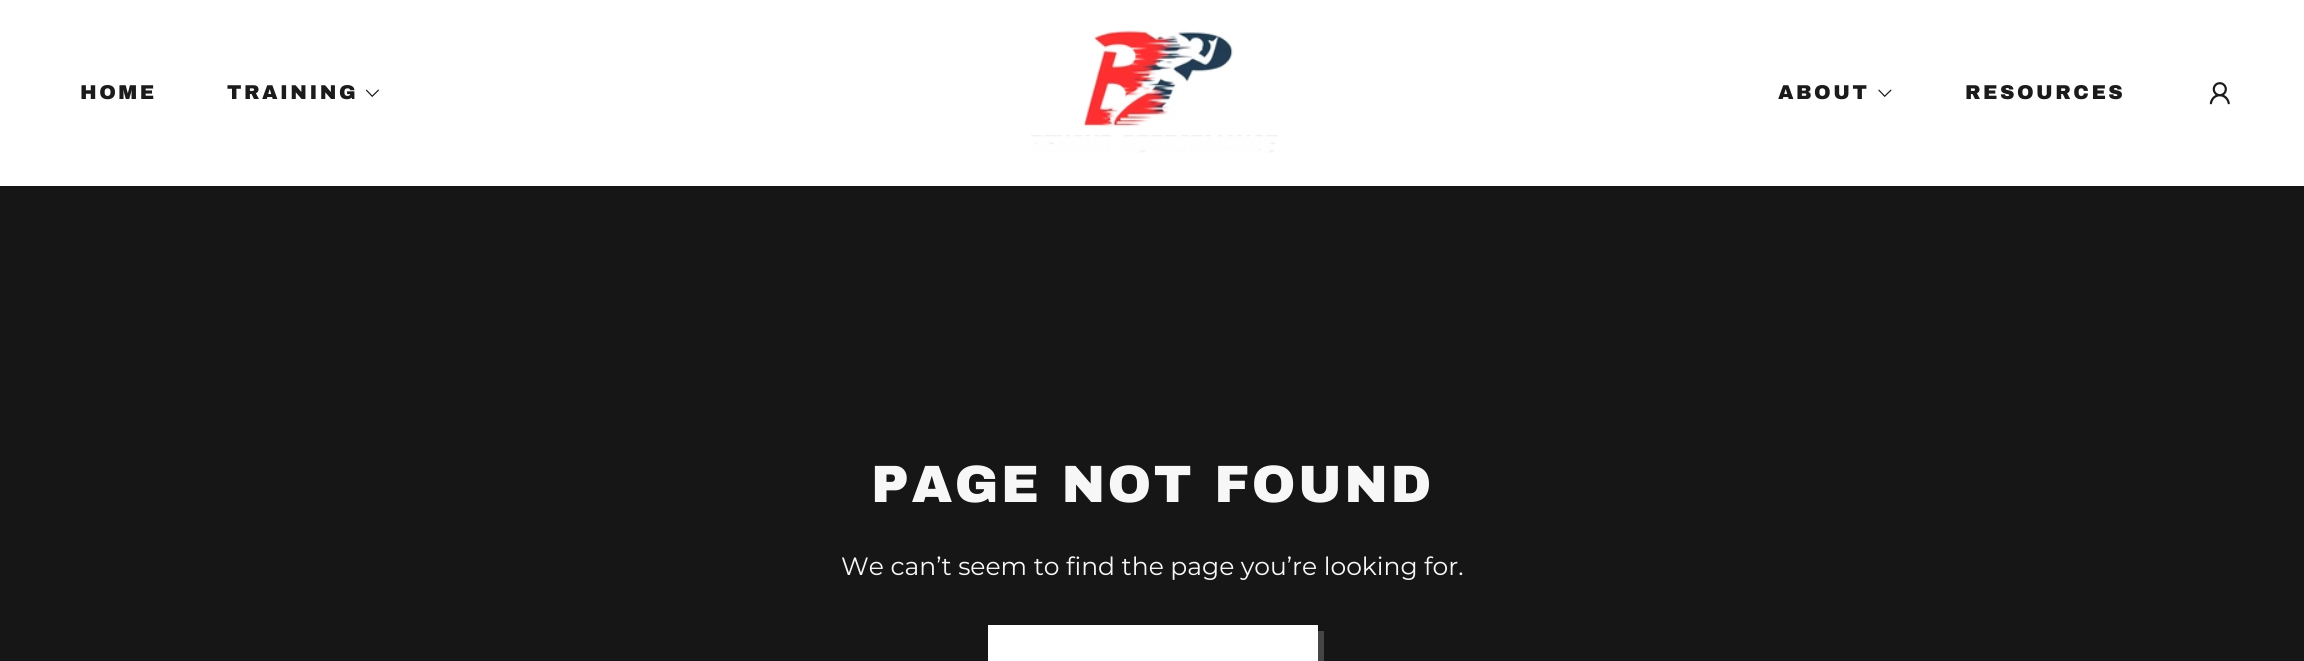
#include <cairo.h>
#include <math.h>
#include <stddef.h>


static void ink(cairo_t *ctx, unsigned color) {
    cairo_set_source_rgb(ctx, (color >> 16) / 255.0, (color >> 8 & 255) / 255.0, (color & 255) / 255.0);
}

static void write_spaced(cairo_t *ctx, double x, double y, const char *s, double letter, double word) {
    cairo_move_to(ctx, x, y);
    while (*s) {
        char ch[5] = {0};
        int n = 0;
        do ch[n++] = *s++; while ((*s & 0xC0) == 0x80);
        cairo_show_text(ctx, ch);
        cairo_rel_move_to(ctx, letter + word * (*ch == ' '), 0);
    }
}

static void paste(cairo_t *ctx, const char *path, double x, double y, double w, double h) {
    cairo_surface_t *image = cairo_image_surface_create_from_png(path);
    cairo_save(ctx);
    cairo_set_source_surface(ctx, image, x, y);
    cairo_rectangle(ctx, x, y, w, h);
    cairo_fill(ctx);
    cairo_restore(ctx);
    cairo_surface_destroy(image);
}

int main(void) {
    cairo_surface_t *surface = cairo_image_surface_create(CAIRO_FORMAT_RGB24, 2304, 661);
    cairo_t *ctx = cairo_create(surface);
    cairo_font_options_t *options = cairo_font_options_create();
    cairo_font_options_set_hint_metrics(options, CAIRO_HINT_METRICS_OFF);
    cairo_font_options_set_hint_style(options, CAIRO_HINT_STYLE_NONE);
    cairo_set_font_options(ctx, options);
    cairo_set_miter_limit(ctx, 4);
    ink(ctx, 0xFFFFFF);
    cairo_paint(ctx);
    cairo_select_font_face(ctx, "Archivo Black Black", CAIRO_FONT_SLANT_NORMAL, CAIRO_FONT_WEIGHT_NORMAL);
    cairo_set_font_size(ctx, 20);
    ink(ctx, 0x1B1B1B);
    write_spaced(ctx, 80, 99, "HOME", 2.5, 0);
    write_spaced(ctx, 227, 99, "TRAINING", 2.5, 0);
    paste(ctx, "media/1.png", 365, 89, 14, 8);
    paste(ctx, "media/2.png", 1031, 30, 247, 123);
    write_spaced(ctx, 1778, 99, "ABOUT", 2.5, 0);
    paste(ctx, "media/3.png", 1878, 89, 14, 8);
    write_spaced(ctx, 1965, 99, "RESOURCES", 2.5, 0);
    paste(ctx, "media/4.png", 2209, 82, 21, 23);
    ink(ctx, 0x161616);
    cairo_rectangle(ctx, 0, 186, 2304, 475);
    cairo_fill(ctx);
    cairo_set_font_size(ctx, 52.5);
    ink(ctx, 0xF7F7F7);
    write_spaced(ctx, 871, 502, "PAGE NOT FOUND", 2.5, 0);
    cairo_select_font_face(ctx, "Montserrat", CAIRO_FONT_SLANT_NORMAL, CAIRO_FONT_WEIGHT_NORMAL);
    cairo_set_font_size(ctx, 25);
    cairo_move_to(ctx, 841, 575);
    cairo_show_text(ctx, "We can’t seem to find the page you’re looking for.");
    ink(ctx, 0xFFFFFF);
    cairo_rectangle(ctx, 988, 625, 330, 36);
    cairo_fill(ctx);
    ink(ctx, 0x454545);
    cairo_new_path(ctx);
    cairo_move_to(ctx, 994, 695);
    cairo_line_to(ctx, 994, 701);
    cairo_line_to(ctx, 1324, 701);
    cairo_line_to(ctx, 1324, 631);
    cairo_line_to(ctx, 1318, 631);
    cairo_line_to(ctx, 1318, 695);
    cairo_close_path(ctx);
    cairo_fill(ctx);
    cairo_surface_write_to_png(surface, "image.png");
    cairo_font_options_destroy(options);
    cairo_destroy(ctx);
    cairo_surface_destroy(surface);
    return 0;
}
